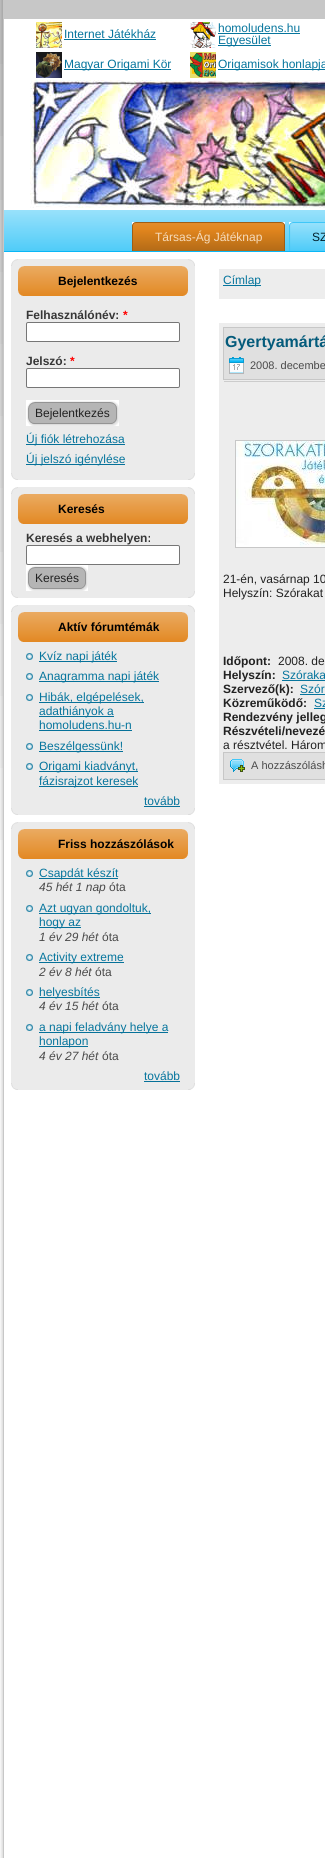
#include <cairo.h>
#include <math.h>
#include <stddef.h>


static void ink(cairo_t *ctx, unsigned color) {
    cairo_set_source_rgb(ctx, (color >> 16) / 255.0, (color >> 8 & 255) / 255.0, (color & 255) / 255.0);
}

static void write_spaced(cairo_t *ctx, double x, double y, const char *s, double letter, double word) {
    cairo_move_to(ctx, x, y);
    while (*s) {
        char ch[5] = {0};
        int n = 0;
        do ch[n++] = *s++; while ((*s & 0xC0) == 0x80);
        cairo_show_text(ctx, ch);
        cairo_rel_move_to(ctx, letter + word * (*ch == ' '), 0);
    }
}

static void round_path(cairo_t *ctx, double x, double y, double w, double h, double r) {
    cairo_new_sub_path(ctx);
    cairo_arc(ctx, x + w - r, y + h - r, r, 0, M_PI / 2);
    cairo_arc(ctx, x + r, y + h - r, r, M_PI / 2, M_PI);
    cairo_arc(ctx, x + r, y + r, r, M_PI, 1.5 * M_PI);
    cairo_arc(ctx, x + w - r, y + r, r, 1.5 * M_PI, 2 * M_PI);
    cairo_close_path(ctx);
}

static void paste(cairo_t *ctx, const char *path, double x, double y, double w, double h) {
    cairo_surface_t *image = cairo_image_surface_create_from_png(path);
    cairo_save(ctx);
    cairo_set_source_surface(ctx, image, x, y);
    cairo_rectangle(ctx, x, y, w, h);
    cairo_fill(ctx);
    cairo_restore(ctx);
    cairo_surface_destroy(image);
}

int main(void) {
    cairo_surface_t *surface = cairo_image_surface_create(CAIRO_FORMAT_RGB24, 325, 1858);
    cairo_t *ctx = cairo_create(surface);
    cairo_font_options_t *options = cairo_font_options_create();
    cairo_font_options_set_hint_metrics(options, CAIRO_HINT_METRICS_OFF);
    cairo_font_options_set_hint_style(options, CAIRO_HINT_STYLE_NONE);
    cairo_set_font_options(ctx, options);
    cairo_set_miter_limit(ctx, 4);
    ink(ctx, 0xFFFFFF);
    cairo_paint(ctx);
    paste(ctx, "media/1.png", 0, 0, 3, 840);
    paste(ctx, "media/2.png", 0, 0, 33, 29);
    paste(ctx, "media/3.png", 33, 0, 292, 29);
    paste(ctx, "media/4.png", 0, 29, 33, 1829);
    paste(ctx, "media/5.png", 36, 22, 26, 26);
    cairo_select_font_face(ctx, "Liberation Sans", CAIRO_FONT_SLANT_NORMAL, CAIRO_FONT_WEIGHT_NORMAL);
    cairo_set_font_size(ctx, 12);
    ink(ctx, 0x06759D);
    cairo_move_to(ctx, 64, 38);
    cairo_show_text(ctx, "Internet Játékház");
    cairo_rectangle(ctx, 64, 39, 92, 1);
    cairo_fill(ctx);
    paste(ctx, "media/6.png", 190, 22, 26, 26);
    cairo_move_to(ctx, 218, 32);
    cairo_show_text(ctx, "homoludens.hu");
    cairo_rectangle(ctx, 218, 33, 82, 1);
    cairo_fill(ctx);
    cairo_rectangle(ctx, 218, 45, 53, 1);
    cairo_fill(ctx);
    cairo_move_to(ctx, 218, 44);
    cairo_show_text(ctx, "Egyesület");
    paste(ctx, "media/7.png", 36, 52, 26, 26);
    cairo_rectangle(ctx, 64, 69, 107, 1);
    cairo_fill(ctx);
    cairo_move_to(ctx, 64, 68);
    cairo_show_text(ctx, "Magyar Origami Kör");
    paste(ctx, "media/8.png", 190, 52, 26, 26);
    cairo_rectangle(ctx, 218, 69, 107, 1);
    cairo_fill(ctx);
    cairo_move_to(ctx, 218, 68);
    cairo_show_text(ctx, "Origamisok honlapja");
    paste(ctx, "media/9.png", 30, 80, 295, 128);
    paste(ctx, "media/10.png", 4, 210, 321, 42);
    paste(ctx, "media/11.png", 132, 222, 149, 29);
    paste(ctx, "media/12.png", 281, 222, 4, 29);
    ink(ctx, 0xF6DBBB);
    cairo_move_to(ctx, 155, 241);
    cairo_show_text(ctx, "Társas-Ág Játéknap");
    paste(ctx, "media/13.png", 289, 222, 36, 29);
    ink(ctx, 0x02212C);
    cairo_move_to(ctx, 312, 241);
    cairo_show_text(ctx, "SZ");
    paste(ctx, "media/14.png", 11, 259, 7, 7);
    ink(ctx, 0xEBEBEB);
    cairo_rectangle(ctx, 18, 259, 170, 7);
    cairo_fill(ctx);
    paste(ctx, "media/15.png", 188, 259, 7, 7);
    cairo_rectangle(ctx, 11, 266, 7, 207);
    cairo_fill(ctx);
    cairo_rectangle(ctx, 18, 266, 177, 207);
    cairo_fill(ctx);
    paste(ctx, "media/16.png", 18, 266, 164, 30);
    paste(ctx, "media/17.png", 182, 266, 6, 30);
    cairo_select_font_face(ctx, "Liberation Sans", CAIRO_FONT_SLANT_NORMAL, CAIRO_FONT_WEIGHT_BOLD);
    ink(ctx, 0x000000);
    cairo_move_to(ctx, 58, 285);
    cairo_show_text(ctx, "Bejelentkezés");
    ink(ctx, 0x363636);
    cairo_move_to(ctx, 26, 319);
    cairo_show_text(ctx, "Felhasználónév:");
    ink(ctx, 0xFF0000);
    cairo_move_to(ctx, 123, 319);
    cairo_show_text(ctx, "*");
    ink(ctx, 0xFFFFFF);
    round_path(ctx, 26.5, 322.5, 153, 19, 1.5);
    cairo_fill_preserve(ctx);
    ink(ctx, 0x767676);
    cairo_set_line_width(ctx, 1);
    cairo_stroke(ctx);
    ink(ctx, 0x363636);
    cairo_move_to(ctx, 26, 365);
    cairo_show_text(ctx, "Jelszó:");
    ink(ctx, 0xFF0000);
    cairo_move_to(ctx, 70, 365);
    cairo_show_text(ctx, "*");
    ink(ctx, 0xFFFFFF);
    round_path(ctx, 26.5, 368.5, 153, 19, 1.5);
    cairo_fill_preserve(ctx);
    ink(ctx, 0x767676);
    cairo_stroke(ctx);
    paste(ctx, "media/18.png", 26, 400, 82, 26);
    paste(ctx, "media/19.png", 108, 400, 11, 26);
    cairo_select_font_face(ctx, "Liberation Sans", CAIRO_FONT_SLANT_NORMAL, CAIRO_FONT_WEIGHT_NORMAL);
    ink(ctx, 0x212121);
    cairo_move_to(ctx, 35, 417);
    cairo_show_text(ctx, "Bejelentkezés");
    ink(ctx, 0x067199);
    cairo_rectangle(ctx, 26, 444, 99, 1);
    cairo_fill(ctx);
    ink(ctx, 0x06759D);
    cairo_move_to(ctx, 26, 443);
    cairo_show_text(ctx, "Új fiók létrehozása");
    ink(ctx, 0x067199);
    cairo_rectangle(ctx, 26, 464, 99, 1);
    cairo_fill(ctx);
    ink(ctx, 0x06759D);
    cairo_move_to(ctx, 26, 463);
    cairo_show_text(ctx, "Új jelszó igénylése");
    paste(ctx, "media/20.png", 11, 473, 7, 7);
    ink(ctx, 0xEBEBEB);
    cairo_rectangle(ctx, 18, 473, 170, 7);
    cairo_fill(ctx);
    paste(ctx, "media/21.png", 188, 473, 7, 7);
    paste(ctx, "media/14.png", 11, 487, 7, 7);
    cairo_rectangle(ctx, 18, 487, 170, 7);
    cairo_fill(ctx);
    paste(ctx, "media/15.png", 188, 487, 7, 7);
    cairo_rectangle(ctx, 11, 494, 7, 97);
    cairo_fill(ctx);
    cairo_rectangle(ctx, 18, 494, 177, 97);
    cairo_fill(ctx);
    paste(ctx, "media/16.png", 18, 494, 164, 30);
    paste(ctx, "media/17.png", 182, 494, 6, 30);
    cairo_select_font_face(ctx, "Liberation Sans", CAIRO_FONT_SLANT_NORMAL, CAIRO_FONT_WEIGHT_BOLD);
    ink(ctx, 0x000000);
    cairo_move_to(ctx, 58, 513);
    cairo_show_text(ctx, "Keresés");
    ink(ctx, 0x363636);
    cairo_move_to(ctx, 26, 542);
    cairo_show_text(ctx, "Keresés a webhelyen:");
    ink(ctx, 0xFFFFFF);
    round_path(ctx, 26.5, 545.5, 153, 19, 1.5);
    cairo_fill_preserve(ctx);
    ink(ctx, 0x767676);
    cairo_stroke(ctx);
    paste(ctx, "media/22.png", 26, 565, 51, 26);
    paste(ctx, "media/19.png", 77, 565, 11, 26);
    cairo_select_font_face(ctx, "Liberation Sans", CAIRO_FONT_SLANT_NORMAL, CAIRO_FONT_WEIGHT_NORMAL);
    ink(ctx, 0x212121);
    cairo_move_to(ctx, 35, 582);
    cairo_show_text(ctx, "Keresés");
    paste(ctx, "media/20.png", 11, 591, 7, 7);
    ink(ctx, 0xEBEBEB);
    cairo_rectangle(ctx, 18, 591, 170, 7);
    cairo_fill(ctx);
    paste(ctx, "media/21.png", 188, 591, 7, 7);
    paste(ctx, "media/14.png", 11, 605, 7, 7);
    cairo_rectangle(ctx, 18, 605, 170, 7);
    cairo_fill(ctx);
    paste(ctx, "media/15.png", 188, 605, 7, 7);
    cairo_rectangle(ctx, 11, 612, 7, 196);
    cairo_fill(ctx);
    cairo_rectangle(ctx, 18, 612, 177, 196);
    cairo_fill(ctx);
    paste(ctx, "media/16.png", 18, 612, 164, 30);
    paste(ctx, "media/17.png", 182, 612, 6, 30);
    cairo_select_font_face(ctx, "Liberation Sans", CAIRO_FONT_SLANT_NORMAL, CAIRO_FONT_WEIGHT_BOLD);
    ink(ctx, 0x000000);
    cairo_move_to(ctx, 58, 631);
    cairo_show_text(ctx, "Aktív fórumtémák");
    paste(ctx, "media/23.png", 26, 653, 7, 7);
    ink(ctx, 0x067199);
    cairo_rectangle(ctx, 39, 661, 78, 1);
    cairo_fill(ctx);
    cairo_select_font_face(ctx, "Liberation Sans", CAIRO_FONT_SLANT_NORMAL, CAIRO_FONT_WEIGHT_NORMAL);
    ink(ctx, 0x06759D);
    cairo_move_to(ctx, 39, 660);
    cairo_show_text(ctx, "Kvíz napi játék");
    paste(ctx, "media/23.png", 26, 673, 7, 7);
    ink(ctx, 0x067199);
    cairo_rectangle(ctx, 39, 681, 120, 1);
    cairo_fill(ctx);
    ink(ctx, 0x06759D);
    cairo_move_to(ctx, 39, 680);
    cairo_show_text(ctx, "Anagramma napi játék");
    paste(ctx, "media/23.png", 26, 694, 7, 7);
    ink(ctx, 0x067199);
    cairo_rectangle(ctx, 39, 702, 105, 1);
    cairo_fill(ctx);
    ink(ctx, 0x06759D);
    cairo_move_to(ctx, 39, 701);
    cairo_show_text(ctx, "Hibák, elgépelések,");
    ink(ctx, 0x067199);
    cairo_rectangle(ctx, 39, 716, 75, 1);
    cairo_fill(ctx);
    ink(ctx, 0x06759D);
    cairo_move_to(ctx, 39, 715);
    cairo_show_text(ctx, "adathiányok a");
    cairo_move_to(ctx, 39, 729);
    cairo_show_text(ctx, "homoludens.hu-n");
    ink(ctx, 0x067199);
    cairo_rectangle(ctx, 39, 730, 93, 1);
    cairo_fill(ctx);
    paste(ctx, "media/23.png", 26, 743, 7, 7);
    cairo_rectangle(ctx, 39, 751, 84, 1);
    cairo_fill(ctx);
    ink(ctx, 0x06759D);
    cairo_move_to(ctx, 39, 750);
    cairo_show_text(ctx, "Beszélgessünk!");
    paste(ctx, "media/23.png", 26, 763, 7, 7);
    ink(ctx, 0x067199);
    cairo_rectangle(ctx, 39, 771, 99, 1);
    cairo_fill(ctx);
    ink(ctx, 0x06759D);
    cairo_move_to(ctx, 39, 770);
    cairo_show_text(ctx, "Origami kiadványt,");
    ink(ctx, 0x067199);
    cairo_rectangle(ctx, 39, 786, 99, 1);
    cairo_fill(ctx);
    ink(ctx, 0x06759D);
    cairo_move_to(ctx, 39, 785);
    cairo_show_text(ctx, "fázisrajzot keresek");
    cairo_move_to(ctx, 144, 805);
    cairo_show_text(ctx, "tovább");
    ink(ctx, 0x067199);
    cairo_rectangle(ctx, 144, 806, 36, 1);
    cairo_fill(ctx);
    paste(ctx, "media/20.png", 11, 808, 7, 7);
    ink(ctx, 0xEBEBEB);
    cairo_rectangle(ctx, 18, 808, 170, 7);
    cairo_fill(ctx);
    paste(ctx, "media/21.png", 188, 808, 7, 7);
    paste(ctx, "media/14.png", 11, 822, 7, 7);
    cairo_rectangle(ctx, 18, 822, 170, 7);
    cairo_fill(ctx);
    paste(ctx, "media/15.png", 188, 822, 7, 7);
    cairo_rectangle(ctx, 11, 829, 7, 254);
    cairo_fill(ctx);
    cairo_rectangle(ctx, 18, 829, 177, 254);
    cairo_fill(ctx);
    paste(ctx, "media/16.png", 18, 829, 164, 30);
    paste(ctx, "media/17.png", 182, 829, 6, 30);
    cairo_select_font_face(ctx, "Liberation Sans", CAIRO_FONT_SLANT_NORMAL, CAIRO_FONT_WEIGHT_BOLD);
    ink(ctx, 0x000000);
    cairo_move_to(ctx, 58, 848);
    cairo_show_text(ctx, "Friss hozzászólások");
    paste(ctx, "media/23.png", 26, 870, 7, 7);
    ink(ctx, 0x067199);
    cairo_rectangle(ctx, 39, 878, 79, 1);
    cairo_fill(ctx);
    cairo_select_font_face(ctx, "Liberation Sans", CAIRO_FONT_SLANT_NORMAL, CAIRO_FONT_WEIGHT_NORMAL);
    ink(ctx, 0x06759D);
    cairo_move_to(ctx, 39, 877);
    cairo_show_text(ctx, "Csapdát készít");
    cairo_select_font_face(ctx, "Liberation Sans", CAIRO_FONT_SLANT_ITALIC, CAIRO_FONT_WEIGHT_NORMAL);
    ink(ctx, 0x4A4A4A);
    cairo_move_to(ctx, 39, 891);
    cairo_show_text(ctx, "45 hét 1 nap");
    cairo_select_font_face(ctx, "Liberation Sans", CAIRO_FONT_SLANT_NORMAL, CAIRO_FONT_WEIGHT_NORMAL);
    cairo_move_to(ctx, 109, 891);
    cairo_show_text(ctx, "óta");
    paste(ctx, "media/23.png", 26, 905, 7, 7);
    ink(ctx, 0x067199);
    cairo_rectangle(ctx, 39, 913, 112, 1);
    cairo_fill(ctx);
    ink(ctx, 0x06759D);
    cairo_move_to(ctx, 39, 912);
    cairo_show_text(ctx, "Azt ugyan gondoltuk,");
    ink(ctx, 0x067199);
    cairo_rectangle(ctx, 39, 927, 42, 1);
    cairo_fill(ctx);
    ink(ctx, 0x06759D);
    cairo_move_to(ctx, 39, 926);
    cairo_show_text(ctx, "hogy az");
    cairo_select_font_face(ctx, "Liberation Sans", CAIRO_FONT_SLANT_ITALIC, CAIRO_FONT_WEIGHT_NORMAL);
    ink(ctx, 0x4A4A4A);
    cairo_move_to(ctx, 39, 941);
    cairo_show_text(ctx, "1 év 29 hét");
    cairo_select_font_face(ctx, "Liberation Sans", CAIRO_FONT_SLANT_NORMAL, CAIRO_FONT_WEIGHT_NORMAL);
    cairo_move_to(ctx, 102, 941);
    cairo_show_text(ctx, "óta");
    paste(ctx, "media/23.png", 26, 954, 7, 7);
    ink(ctx, 0x067199);
    cairo_rectangle(ctx, 39, 962, 85, 1);
    cairo_fill(ctx);
    ink(ctx, 0x06759D);
    cairo_move_to(ctx, 39, 961);
    cairo_show_text(ctx, "Activity extreme");
    cairo_select_font_face(ctx, "Liberation Sans", CAIRO_FONT_SLANT_ITALIC, CAIRO_FONT_WEIGHT_NORMAL);
    ink(ctx, 0x4A4A4A);
    cairo_move_to(ctx, 39, 976);
    cairo_show_text(ctx, "2 év 8 hét");
    cairo_select_font_face(ctx, "Liberation Sans", CAIRO_FONT_SLANT_NORMAL, CAIRO_FONT_WEIGHT_NORMAL);
    cairo_move_to(ctx, 95, 976);
    cairo_show_text(ctx, "óta");
    paste(ctx, "media/23.png", 26, 989, 7, 7);
    ink(ctx, 0x067199);
    cairo_rectangle(ctx, 39, 997, 61, 1);
    cairo_fill(ctx);
    ink(ctx, 0x06759D);
    cairo_move_to(ctx, 39, 996);
    cairo_show_text(ctx, "helyesbítés");
    cairo_select_font_face(ctx, "Liberation Sans", CAIRO_FONT_SLANT_ITALIC, CAIRO_FONT_WEIGHT_NORMAL);
    ink(ctx, 0x4A4A4A);
    cairo_move_to(ctx, 39, 1010);
    cairo_show_text(ctx, "4 év 15 hét");
    cairo_select_font_face(ctx, "Liberation Sans", CAIRO_FONT_SLANT_NORMAL, CAIRO_FONT_WEIGHT_NORMAL);
    cairo_move_to(ctx, 102, 1010);
    cairo_show_text(ctx, "óta");
    paste(ctx, "media/23.png", 26, 1024, 7, 7);
    ink(ctx, 0x067199);
    cairo_rectangle(ctx, 39, 1032, 129, 1);
    cairo_fill(ctx);
    ink(ctx, 0x06759D);
    cairo_move_to(ctx, 39, 1031);
    cairo_show_text(ctx, "a napi feladvány helye a");
    ink(ctx, 0x067199);
    cairo_rectangle(ctx, 39, 1046, 49, 1);
    cairo_fill(ctx);
    ink(ctx, 0x06759D);
    cairo_move_to(ctx, 39, 1045);
    cairo_show_text(ctx, "honlapon");
    cairo_select_font_face(ctx, "Liberation Sans", CAIRO_FONT_SLANT_ITALIC, CAIRO_FONT_WEIGHT_NORMAL);
    ink(ctx, 0x4A4A4A);
    cairo_move_to(ctx, 39, 1060);
    cairo_show_text(ctx, "4 év 27 hét");
    cairo_select_font_face(ctx, "Liberation Sans", CAIRO_FONT_SLANT_NORMAL, CAIRO_FONT_WEIGHT_NORMAL);
    cairo_move_to(ctx, 102, 1060);
    cairo_show_text(ctx, "óta");
    ink(ctx, 0x06759D);
    cairo_move_to(ctx, 144, 1080);
    cairo_show_text(ctx, "tovább");
    ink(ctx, 0x067199);
    cairo_rectangle(ctx, 144, 1081, 36, 1);
    cairo_fill(ctx);
    paste(ctx, "media/20.png", 11, 1083, 7, 7);
    ink(ctx, 0xEBEBEB);
    cairo_rectangle(ctx, 18, 1083, 170, 7);
    cairo_fill(ctx);
    paste(ctx, "media/21.png", 188, 1083, 7, 7);
    ink(ctx, 0xEDEDED);
    cairo_rectangle(ctx, 219, 269, 106, 30);
    cairo_fill(ctx);
    ink(ctx, 0x06759D);
    cairo_rectangle(ctx, 223, 285, 38, 1);
    cairo_fill(ctx);
    cairo_move_to(ctx, 223, 284);
    cairo_show_text(ctx, "Címlap");
    ink(ctx, 0xEDEDED);
    cairo_rectangle(ctx, 219, 323, 106, 461);
    cairo_fill(ctx);
    ink(ctx, 0xE0E0E0);
    cairo_rectangle(ctx, 223.5, 327.5, 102, 52);
    cairo_fill_preserve(ctx);
    ink(ctx, 0xC7C7C7);
    cairo_stroke(ctx);
    cairo_select_font_face(ctx, "Liberation Sans", CAIRO_FONT_SLANT_NORMAL, CAIRO_FONT_WEIGHT_BOLD);
    cairo_set_font_size(ctx, 16);
    ink(ctx, 0x045B7B);
    cairo_move_to(ctx, 225, 347);
    cairo_show_text(ctx, "Gyertyamártá");
    paste(ctx, "media/24.png", 229, 357, 15, 17);
    cairo_select_font_face(ctx, "Liberation Sans", CAIRO_FONT_SLANT_NORMAL, CAIRO_FONT_WEIGHT_NORMAL);
    cairo_set_font_size(ctx, 11);
    ink(ctx, 0x4A4A4A);
    cairo_move_to(ctx, 250, 369);
    cairo_show_text(ctx, "2008. decembe");
    ink(ctx, 0xCCCCCC);
    cairo_rectangle(ctx, 224, 381, 101, 1);
    cairo_fill(ctx);
    cairo_rectangle(ctx, 235.5, 440.5, 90, 107);
    ink(ctx, 0xC7C7C7);
    cairo_stroke(ctx);
    paste(ctx, "media/25.png", 236, 441, 89, 106);
    cairo_set_font_size(ctx, 12);
    ink(ctx, 0x212121);
    cairo_move_to(ctx, 223, 583);
    cairo_show_text(ctx, "21-én, vasárnap 10");
    cairo_move_to(ctx, 223, 597);
    cairo_show_text(ctx, "Helyszín: Szórakat");
    cairo_select_font_face(ctx, "Liberation Sans", CAIRO_FONT_SLANT_NORMAL, CAIRO_FONT_WEIGHT_BOLD);
    cairo_move_to(ctx, 223, 665);
    cairo_show_text(ctx, "Időpont:");
    cairo_select_font_face(ctx, "Liberation Sans", CAIRO_FONT_SLANT_NORMAL, CAIRO_FONT_WEIGHT_NORMAL);
    cairo_move_to(ctx, 278, 665);
    cairo_show_text(ctx, "2008. de");
    cairo_select_font_face(ctx, "Liberation Sans", CAIRO_FONT_SLANT_NORMAL, CAIRO_FONT_WEIGHT_BOLD);
    cairo_move_to(ctx, 223, 679);
    cairo_show_text(ctx, "Helyszín:");
    cairo_select_font_face(ctx, "Liberation Sans", CAIRO_FONT_SLANT_NORMAL, CAIRO_FONT_WEIGHT_NORMAL);
    ink(ctx, 0x06759D);
    cairo_move_to(ctx, 282, 679);
    cairo_show_text(ctx, "Szóraka");
    cairo_rectangle(ctx, 282, 680, 43, 1);
    cairo_fill(ctx);
    cairo_select_font_face(ctx, "Liberation Sans", CAIRO_FONT_SLANT_NORMAL, CAIRO_FONT_WEIGHT_BOLD);
    ink(ctx, 0x212121);
    cairo_move_to(ctx, 223, 693);
    cairo_show_text(ctx, "Szervező(k):");
    cairo_select_font_face(ctx, "Liberation Sans", CAIRO_FONT_SLANT_NORMAL, CAIRO_FONT_WEIGHT_NORMAL);
    ink(ctx, 0x06759D);
    cairo_move_to(ctx, 300, 693);
    cairo_show_text(ctx, "Szór");
    cairo_rectangle(ctx, 300, 694, 25, 1);
    cairo_fill(ctx);
    cairo_select_font_face(ctx, "Liberation Sans", CAIRO_FONT_SLANT_NORMAL, CAIRO_FONT_WEIGHT_BOLD);
    ink(ctx, 0x212121);
    cairo_move_to(ctx, 223, 707);
    cairo_show_text(ctx, "Közreműködő:");
    cairo_select_font_face(ctx, "Liberation Sans", CAIRO_FONT_SLANT_NORMAL, CAIRO_FONT_WEIGHT_NORMAL);
    ink(ctx, 0x06759D);
    cairo_move_to(ctx, 314, 707);
    cairo_show_text(ctx, "Sz");
    cairo_rectangle(ctx, 314, 708, 11, 1);
    cairo_fill(ctx);
    cairo_select_font_face(ctx, "Liberation Sans", CAIRO_FONT_SLANT_NORMAL, CAIRO_FONT_WEIGHT_BOLD);
    ink(ctx, 0x212121);
    cairo_move_to(ctx, 223, 721);
    cairo_show_text(ctx, "Rendezvény jelleg");
    write_spaced(ctx, 223, 735, "Részvételi/nevezé", 0, 1);
    cairo_select_font_face(ctx, "Liberation Sans", CAIRO_FONT_SLANT_NORMAL, CAIRO_FONT_WEIGHT_NORMAL);
    cairo_move_to(ctx, 223, 749);
    cairo_show_text(ctx, "a résztvétel. Három");
    ink(ctx, 0xE0E0E0);
    cairo_rectangle(ctx, 223.5, 752.5, 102, 27);
    cairo_fill_preserve(ctx);
    ink(ctx, 0xC7C7C7);
    cairo_stroke(ctx);
    paste(ctx, "media/26.png", 230, 759, 15, 13);
    cairo_set_font_size(ctx, 11);
    ink(ctx, 0x4A4A4A);
    cairo_move_to(ctx, 251, 769);
    cairo_show_text(ctx, "A hozzászólásh");
    cairo_surface_write_to_png(surface, "image.png");
    cairo_font_options_destroy(options);
    cairo_destroy(ctx);
    cairo_surface_destroy(surface);
    return 0;
}
